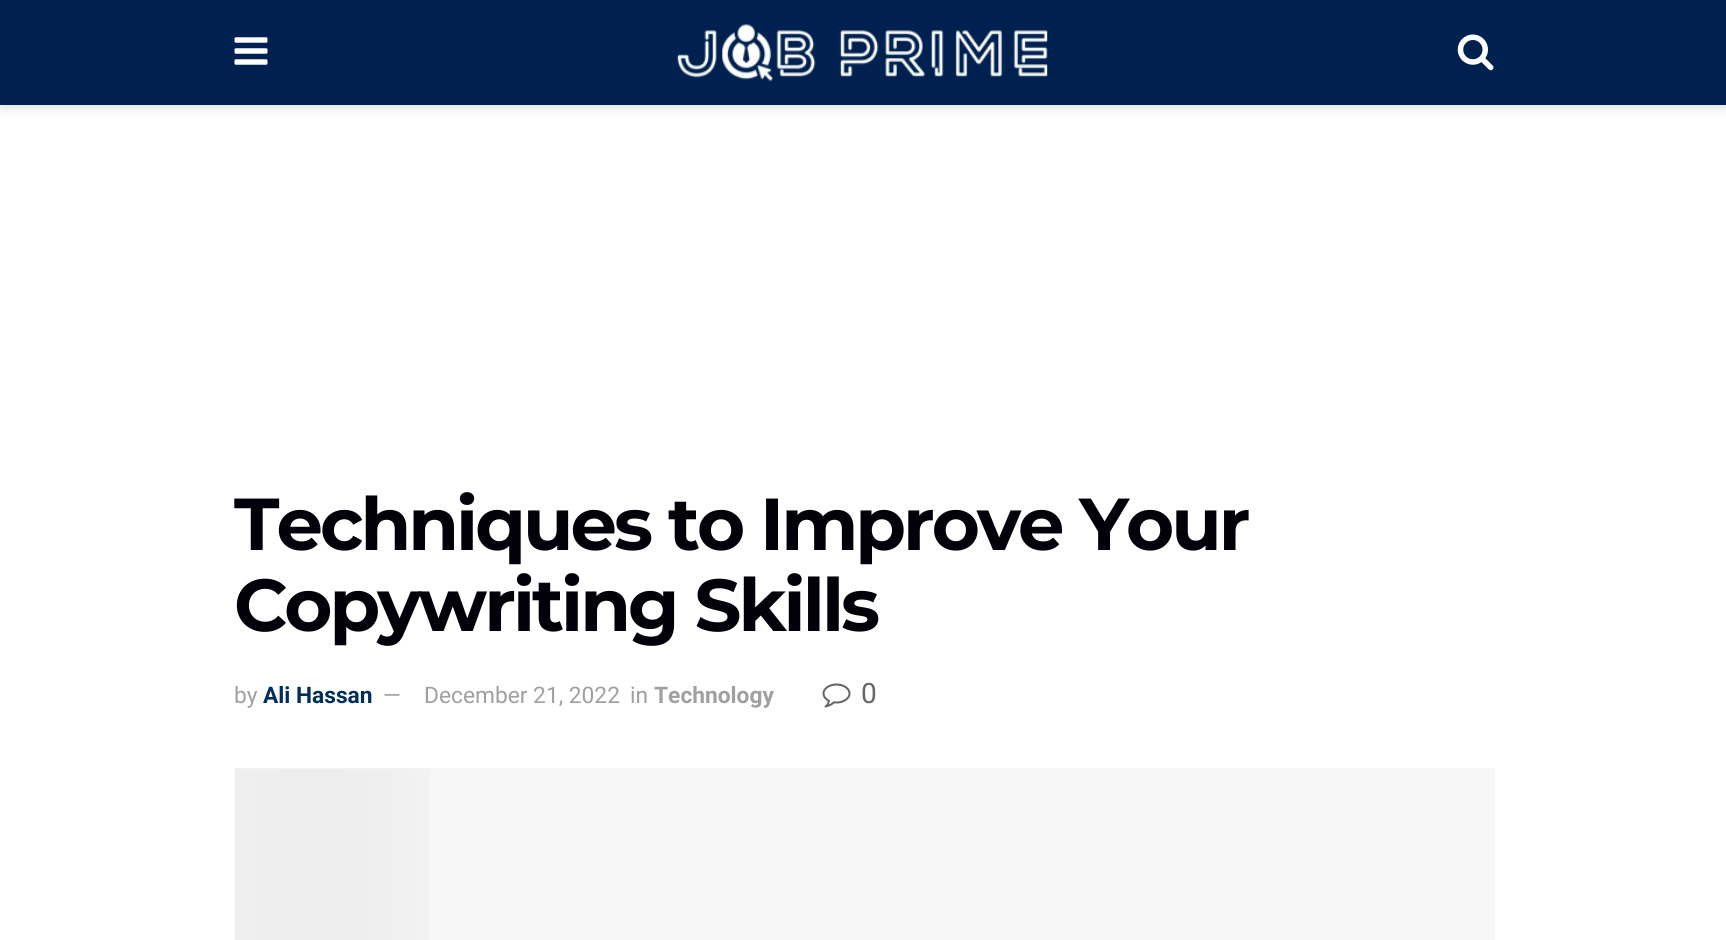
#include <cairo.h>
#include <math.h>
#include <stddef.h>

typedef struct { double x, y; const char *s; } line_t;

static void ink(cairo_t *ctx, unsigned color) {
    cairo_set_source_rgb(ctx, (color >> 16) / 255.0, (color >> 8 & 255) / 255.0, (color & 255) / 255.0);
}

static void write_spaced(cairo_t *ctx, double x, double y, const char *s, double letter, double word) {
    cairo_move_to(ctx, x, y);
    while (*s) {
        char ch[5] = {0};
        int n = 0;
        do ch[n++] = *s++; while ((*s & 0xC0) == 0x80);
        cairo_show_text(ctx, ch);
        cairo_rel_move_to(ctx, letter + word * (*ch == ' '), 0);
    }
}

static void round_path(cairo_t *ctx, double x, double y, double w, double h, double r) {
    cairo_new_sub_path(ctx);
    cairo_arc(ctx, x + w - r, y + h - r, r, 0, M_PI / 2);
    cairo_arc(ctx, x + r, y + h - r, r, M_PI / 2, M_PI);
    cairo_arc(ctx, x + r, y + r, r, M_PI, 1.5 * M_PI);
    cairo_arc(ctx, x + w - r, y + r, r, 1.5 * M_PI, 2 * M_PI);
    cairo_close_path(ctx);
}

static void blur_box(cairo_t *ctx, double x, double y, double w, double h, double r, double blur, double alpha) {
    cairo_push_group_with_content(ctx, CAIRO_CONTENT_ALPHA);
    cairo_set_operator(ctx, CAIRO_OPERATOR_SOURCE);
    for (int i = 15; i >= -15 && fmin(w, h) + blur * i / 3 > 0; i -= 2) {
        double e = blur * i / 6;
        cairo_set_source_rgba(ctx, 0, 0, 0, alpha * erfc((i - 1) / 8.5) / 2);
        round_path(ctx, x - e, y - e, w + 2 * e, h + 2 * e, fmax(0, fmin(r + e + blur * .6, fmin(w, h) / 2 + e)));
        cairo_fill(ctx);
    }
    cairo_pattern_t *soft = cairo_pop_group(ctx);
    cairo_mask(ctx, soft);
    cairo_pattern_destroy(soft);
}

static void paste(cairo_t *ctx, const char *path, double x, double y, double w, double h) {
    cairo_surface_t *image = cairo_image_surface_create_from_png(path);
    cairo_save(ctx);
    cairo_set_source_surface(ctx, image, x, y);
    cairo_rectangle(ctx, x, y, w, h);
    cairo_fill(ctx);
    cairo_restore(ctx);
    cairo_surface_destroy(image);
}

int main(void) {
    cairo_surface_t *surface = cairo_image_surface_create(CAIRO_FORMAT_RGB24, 1726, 940);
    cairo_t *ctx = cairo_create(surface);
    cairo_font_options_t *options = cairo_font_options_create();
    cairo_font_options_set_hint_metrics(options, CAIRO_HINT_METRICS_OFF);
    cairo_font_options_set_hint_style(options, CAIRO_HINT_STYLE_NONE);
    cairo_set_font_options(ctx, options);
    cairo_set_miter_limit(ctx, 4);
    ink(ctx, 0xFFFFFF);
    cairo_paint(ctx);
    ink(ctx, 0x000000);
    blur_box(ctx, 0, 4, 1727, 105, 0, 5, 0.1);
    ink(ctx, 0x00214F);
    cairo_rectangle(ctx, 0, 0, 1726, 105);
    cairo_fill(ctx);
    paste(ctx, "media/1.png", 234, 37, 34, 28);
    paste(ctx, "media/2.png", 677, 24, 371, 58);
    paste(ctx, "media/3.png", 1457, 34, 37, 37);
    cairo_select_font_face(ctx, "Montserrat", CAIRO_FONT_SLANT_NORMAL, CAIRO_FONT_WEIGHT_BOLD);
    cairo_set_font_size(ctx, 73.5);
    ink(ctx, 0x02010A);
    write_spaced(ctx, 234, 550, "Techniques to Improve Your", -2.95, 0);
    write_spaced(ctx, 234, 631, "Copywriting Skills", -2.95, 0);
    cairo_select_font_face(ctx, "Roboto", CAIRO_FONT_SLANT_NORMAL, CAIRO_FONT_WEIGHT_NORMAL);
    cairo_set_font_size(ctx, 22.75);
    ink(ctx, 0xA0A0A0);
    cairo_move_to(ctx, 234, 703);
    cairo_show_text(ctx, "by");
    cairo_select_font_face(ctx, "Roboto", CAIRO_FONT_SLANT_NORMAL, CAIRO_FONT_WEIGHT_BOLD);
    ink(ctx, 0x002E5B);
    cairo_move_to(ctx, 263, 703);
    cairo_show_text(ctx, "Ali Hassan");
    cairo_select_font_face(ctx, "Roboto", CAIRO_FONT_SLANT_NORMAL, CAIRO_FONT_WEIGHT_NORMAL);
    ink(ctx, 0xA0A0A0);
    {
        static const line_t items[] = {
            {383, 703, "—"},
            {424, 703, "December 21, 2022"},
            {630, 703, "in"},
        };
        for (size_t i = 0; i < sizeof items / sizeof *items; i++) {
            cairo_move_to(ctx, items[i].x, items[i].y);
            cairo_show_text(ctx, items[i].s);
        }
    }
    cairo_select_font_face(ctx, "Roboto", CAIRO_FONT_SLANT_NORMAL, CAIRO_FONT_WEIGHT_BOLD);
    cairo_move_to(ctx, 654, 703);
    cairo_show_text(ctx, "Technology");
    paste(ctx, "media/4.png", 822, 683, 29, 25);
    cairo_select_font_face(ctx, "Roboto", CAIRO_FONT_SLANT_NORMAL, CAIRO_FONT_WEIGHT_NORMAL);
    cairo_set_font_size(ctx, 28);
    ink(ctx, 0x666666);
    cairo_move_to(ctx, 861, 703);
    cairo_show_text(ctx, "0");
    ink(ctx, 0xF7F7F7);
    cairo_rectangle(ctx, 235, 768, 1260, 172);
    cairo_fill(ctx);
    paste(ctx, "media/5.png", 234, 768, 196, 172);
    cairo_surface_write_to_png(surface, "image.png");
    cairo_font_options_destroy(options);
    cairo_destroy(ctx);
    cairo_surface_destroy(surface);
    return 0;
}
